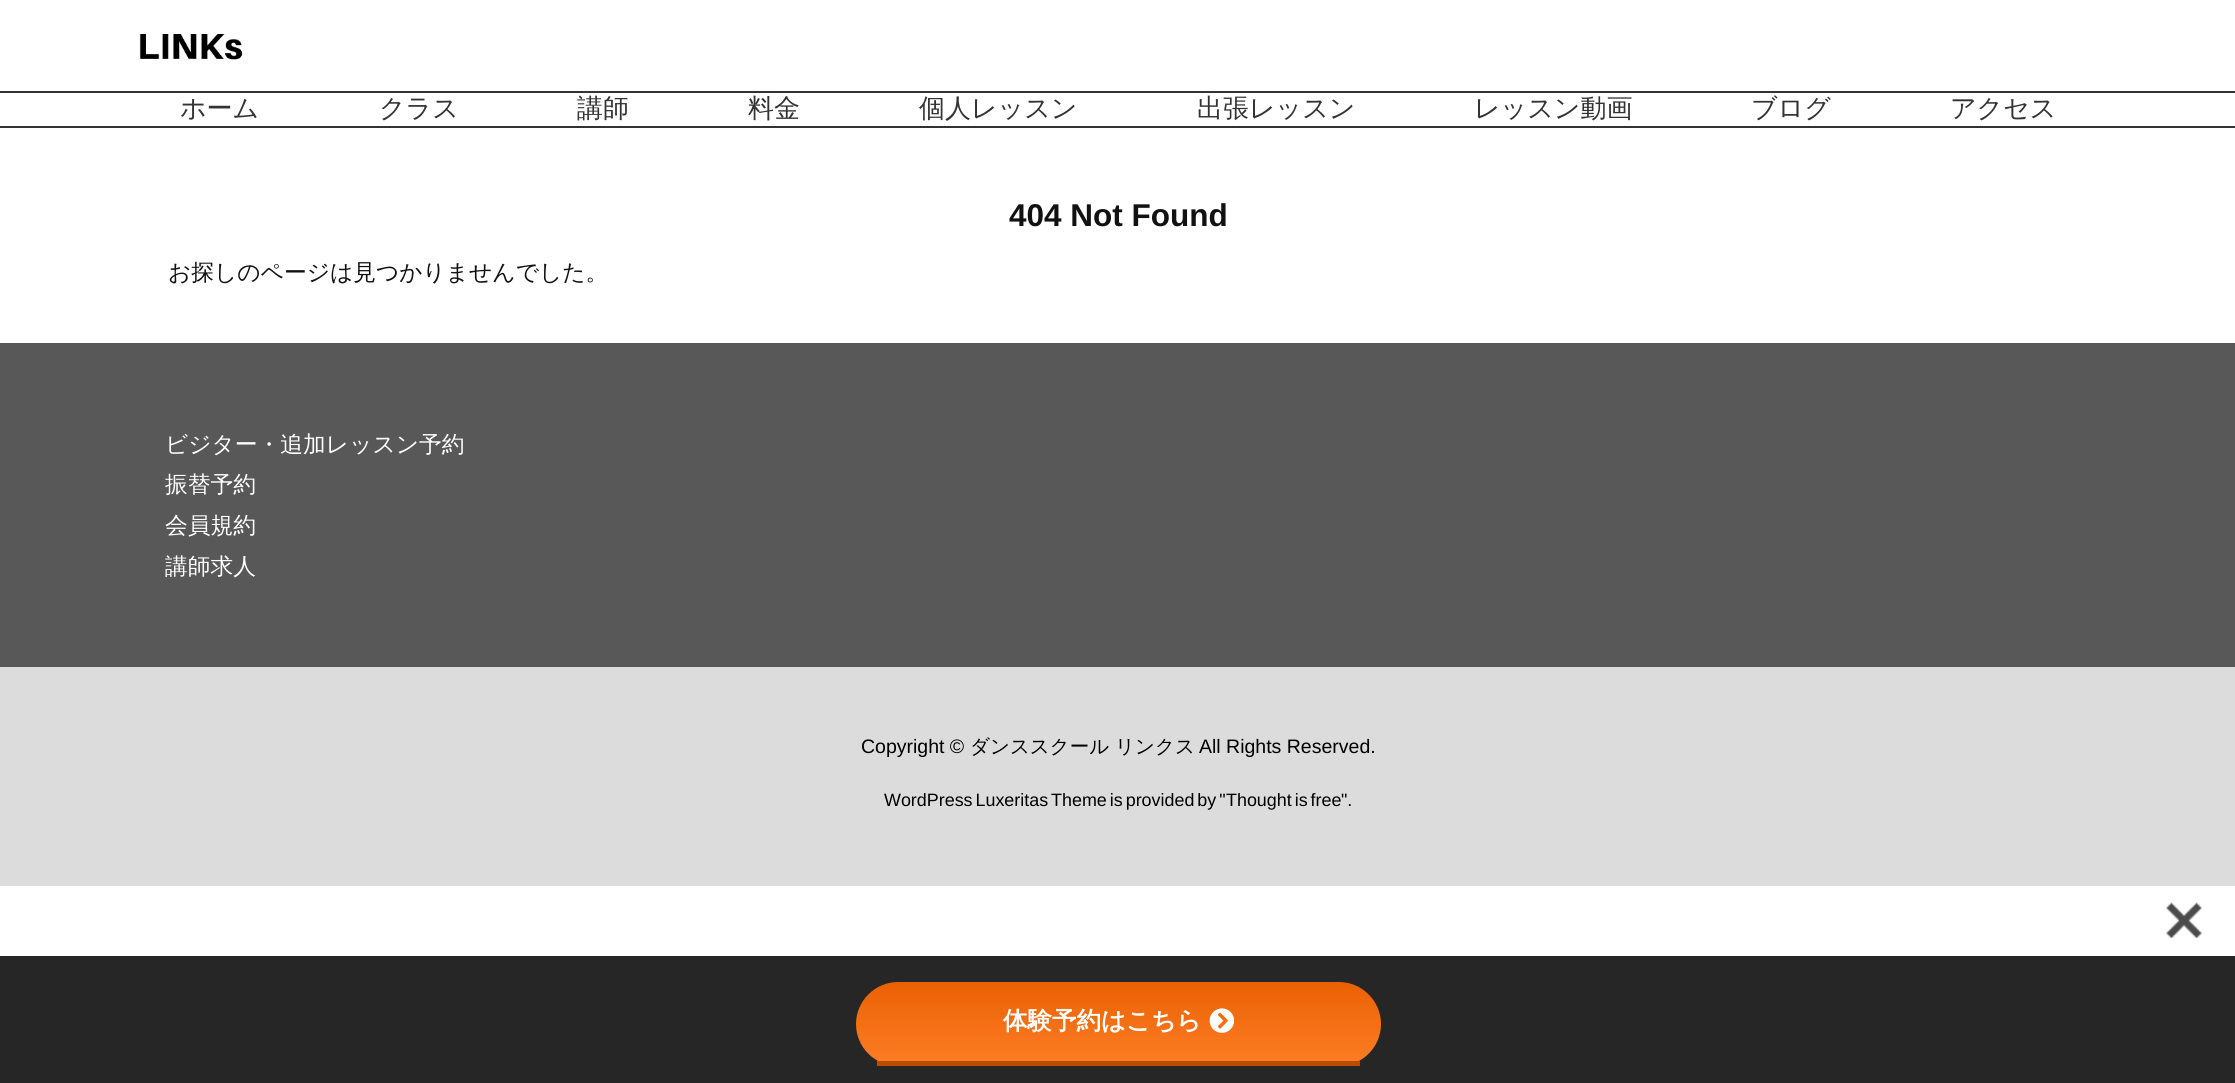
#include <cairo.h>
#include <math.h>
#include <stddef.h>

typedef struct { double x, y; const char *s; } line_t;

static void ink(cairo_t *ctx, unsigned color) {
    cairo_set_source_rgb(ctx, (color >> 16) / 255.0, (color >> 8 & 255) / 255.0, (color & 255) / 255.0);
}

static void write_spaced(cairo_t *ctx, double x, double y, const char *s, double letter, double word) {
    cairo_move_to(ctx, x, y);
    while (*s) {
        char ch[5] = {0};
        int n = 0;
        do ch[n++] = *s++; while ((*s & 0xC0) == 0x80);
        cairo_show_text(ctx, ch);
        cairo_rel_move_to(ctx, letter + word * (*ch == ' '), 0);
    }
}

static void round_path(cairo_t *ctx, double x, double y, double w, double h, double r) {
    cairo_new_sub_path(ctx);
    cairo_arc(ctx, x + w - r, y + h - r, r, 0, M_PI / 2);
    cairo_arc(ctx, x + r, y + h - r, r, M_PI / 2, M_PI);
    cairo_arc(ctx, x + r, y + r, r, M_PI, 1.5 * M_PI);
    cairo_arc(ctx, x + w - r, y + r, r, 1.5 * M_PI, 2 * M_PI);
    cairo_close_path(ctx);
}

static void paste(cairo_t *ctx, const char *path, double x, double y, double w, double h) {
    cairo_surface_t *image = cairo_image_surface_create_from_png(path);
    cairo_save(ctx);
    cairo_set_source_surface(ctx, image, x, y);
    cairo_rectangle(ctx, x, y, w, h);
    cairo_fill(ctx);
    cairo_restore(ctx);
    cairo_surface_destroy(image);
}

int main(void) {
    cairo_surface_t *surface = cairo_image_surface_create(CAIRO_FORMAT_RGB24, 2235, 1083);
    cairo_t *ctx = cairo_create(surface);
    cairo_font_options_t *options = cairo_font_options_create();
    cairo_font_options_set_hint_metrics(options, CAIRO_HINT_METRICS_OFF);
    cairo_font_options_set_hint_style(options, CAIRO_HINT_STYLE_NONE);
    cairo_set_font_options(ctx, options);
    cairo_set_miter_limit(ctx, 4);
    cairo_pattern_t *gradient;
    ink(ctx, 0xFFFFFF);
    cairo_paint(ctx);
    paste(ctx, "media/1.png", 139, 34, 104, 26);
    ink(ctx, 0x333333);
    cairo_rectangle(ctx, 0, 91, 2235, 2);
    cairo_fill(ctx);
    cairo_rectangle(ctx, 0, 126, 2235, 2);
    cairo_fill(ctx);
    cairo_select_font_face(ctx, "WenQuanYi Zen Hei Medium", CAIRO_FONT_SLANT_NORMAL, CAIRO_FONT_WEIGHT_NORMAL);
    cairo_set_font_size(ctx, 26);
    {
        static const line_t items[] = {
            {180, 117, "ホーム"},
            {379, 117, "クラス"},
            {577, 117, "講師"},
            {748, 117, "料金"},
            {919, 117, "個人レッスン"},
            {1197, 117, "出張レッスン"},
            {1474, 117, "レッスン動画"},
            {1751, 117, "ブログ"},
            {1950, 117, "アクセス"},
        };
        for (size_t i = 0; i < sizeof items / sizeof *items; i++) {
            cairo_move_to(ctx, items[i].x, items[i].y);
            cairo_show_text(ctx, items[i].s);
        }
    }
    cairo_select_font_face(ctx, "Liberation Sans", CAIRO_FONT_SLANT_NORMAL, CAIRO_FONT_WEIGHT_BOLD);
    cairo_set_font_size(ctx, 31.5);
    ink(ctx, 0x111111);
    cairo_move_to(ctx, 1009, 226);
    cairo_show_text(ctx, "404 Not Found");
    cairo_select_font_face(ctx, "WenQuanYi Zen Hei Medium", CAIRO_FONT_SLANT_NORMAL, CAIRO_FONT_WEIGHT_NORMAL);
    cairo_set_font_size(ctx, 22.75);
    cairo_move_to(ctx, 168, 280);
    cairo_show_text(ctx, "お探しのページは見つかりませんでした。");
    ink(ctx, 0x585858);
    cairo_rectangle(ctx, 0, 343, 2235, 324);
    cairo_fill(ctx);
    ink(ctx, 0xFFFFFF);
    {
        static const line_t items[] = {
            {165, 452, "ビジター・追加レッスン予約"},
            {165, 492, "振替予約"},
            {165, 533, "会員規約"},
            {165, 574, "講師求人"},
        };
        for (size_t i = 0; i < sizeof items / sizeof *items; i++) {
            cairo_move_to(ctx, items[i].x, items[i].y);
            cairo_show_text(ctx, items[i].s);
        }
    }
    ink(ctx, 0xDCDCDC);
    cairo_rectangle(ctx, 0, 667, 2235, 219);
    cairo_fill(ctx);
    cairo_select_font_face(ctx, "Liberation Sans", CAIRO_FONT_SLANT_NORMAL, CAIRO_FONT_WEIGHT_NORMAL);
    cairo_set_font_size(ctx, 19.5);
    ink(ctx, 0x000000);
    cairo_move_to(ctx, 861, 753);
    cairo_show_text(ctx, "Copyright ©");
    cairo_select_font_face(ctx, "WenQuanYi Zen Hei Medium", CAIRO_FONT_SLANT_NORMAL, CAIRO_FONT_WEIGHT_NORMAL);
    cairo_move_to(ctx, 970, 753);
    cairo_show_text(ctx, "ダンススクール リンクス");
    cairo_select_font_face(ctx, "Liberation Sans", CAIRO_FONT_SLANT_NORMAL, CAIRO_FONT_WEIGHT_NORMAL);
    cairo_move_to(ctx, 1199, 753);
    cairo_show_text(ctx, "All Rights Reserved.");
    cairo_set_font_size(ctx, 17.9);
    write_spaced(ctx, 884, 806, "WordPress Luxeritas Theme is provided by \"", 0, -2);
    write_spaced(ctx, 1226, 806, "Thought is free", 0, -2);
    cairo_move_to(ctx, 1341, 806);
    cairo_show_text(ctx, "\".");
    ink(ctx, 0x262626);
    cairo_rectangle(ctx, 0, 956, 2235, 127);
    cairo_fill(ctx);
    paste(ctx, "media/2.png", 2166, 902, 36, 36);
    cairo_save(ctx);
    round_path(ctx, 856, 982, 525, 84, 42);
    cairo_clip(ctx);
    gradient = cairo_pattern_create_linear(1118, 982, 1118, 1061);
    cairo_pattern_add_color_stop_rgba(gradient, 0, 0.918, 0.38, 0.012, 1);
    cairo_pattern_add_color_stop_rgba(gradient, 1, 0.988, 0.486, 0.141, 1);
    cairo_set_source(ctx, gradient);
    cairo_pattern_destroy(gradient);
    cairo_new_path(ctx);
    cairo_move_to(ctx, 898, 982);
    cairo_line_to(ctx, 1339, 982);
    cairo_curve_to(ctx, 1362, 982, 1381, 1001, 1381, 1024);
    cairo_line_to(ctx, 1381, 1061);
    cairo_line_to(ctx, 856, 1061);
    cairo_line_to(ctx, 856, 1024);
    cairo_curve_to(ctx, 856, 1001, 875, 982, 898, 982);
    cairo_close_path(ctx);
    cairo_fill(ctx);
    cairo_restore(ctx);
    ink(ctx, 0xB84C02);
    cairo_rectangle(ctx, 877, 1061, 483, 5);
    cairo_fill(ctx);
    cairo_select_font_face(ctx, "WenQuanYi Zen Hei", CAIRO_FONT_SLANT_NORMAL, CAIRO_FONT_WEIGHT_BOLD);
    cairo_set_font_size(ctx, 24.5);
    ink(ctx, 0xFFFFFF);
    cairo_move_to(ctx, 1003, 1029);
    cairo_show_text(ctx, "体験予約はこちら");
    paste(ctx, "media/3.png", 1209, 1008, 25, 25);
    cairo_surface_write_to_png(surface, "image.png");
    cairo_font_options_destroy(options);
    cairo_destroy(ctx);
    cairo_surface_destroy(surface);
    return 0;
}
